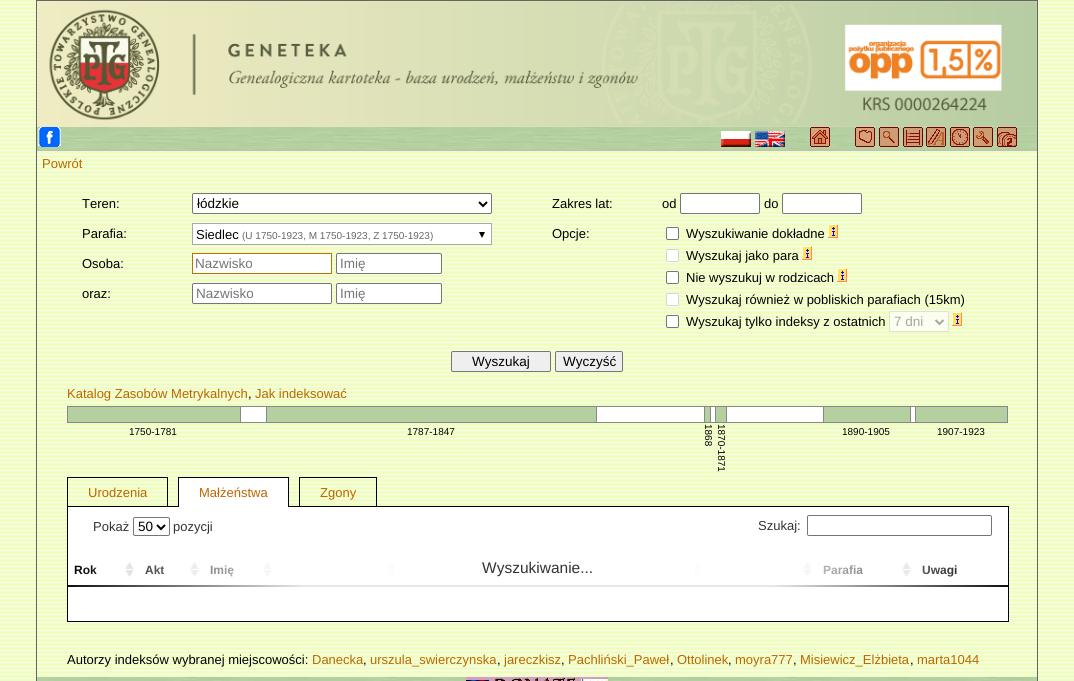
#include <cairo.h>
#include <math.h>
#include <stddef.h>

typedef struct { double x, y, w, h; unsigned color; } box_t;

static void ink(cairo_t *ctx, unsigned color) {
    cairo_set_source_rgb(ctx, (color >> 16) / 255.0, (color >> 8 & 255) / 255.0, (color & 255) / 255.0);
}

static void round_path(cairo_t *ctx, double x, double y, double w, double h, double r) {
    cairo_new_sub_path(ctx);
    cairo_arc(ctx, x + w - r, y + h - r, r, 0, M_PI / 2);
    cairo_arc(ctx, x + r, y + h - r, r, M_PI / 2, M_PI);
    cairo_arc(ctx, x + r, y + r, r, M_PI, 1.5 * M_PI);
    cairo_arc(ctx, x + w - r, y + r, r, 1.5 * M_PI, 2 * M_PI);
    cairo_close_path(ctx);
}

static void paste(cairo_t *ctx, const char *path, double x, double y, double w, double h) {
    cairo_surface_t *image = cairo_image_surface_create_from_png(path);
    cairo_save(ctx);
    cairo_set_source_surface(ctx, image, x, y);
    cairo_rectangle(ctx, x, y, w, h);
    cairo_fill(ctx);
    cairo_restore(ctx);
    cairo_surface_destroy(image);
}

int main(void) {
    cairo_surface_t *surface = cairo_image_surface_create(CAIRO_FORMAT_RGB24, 1074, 681);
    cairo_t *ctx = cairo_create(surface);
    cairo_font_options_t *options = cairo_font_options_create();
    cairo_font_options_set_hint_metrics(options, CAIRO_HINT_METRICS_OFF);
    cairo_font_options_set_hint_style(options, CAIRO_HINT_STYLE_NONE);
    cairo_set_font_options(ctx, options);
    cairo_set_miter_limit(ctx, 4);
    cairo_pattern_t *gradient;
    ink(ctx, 0xFFFFFF);
    cairo_paint(ctx);
    paste(ctx, "media/1.png", 0, 0, 1074, 681);
    cairo_rectangle(ctx, 36.5, 0.5, 1001, 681);
    ink(ctx, 0x646464);
    cairo_set_line_width(ctx, 1);
    cairo_stroke(ctx);
    paste(ctx, "media/2.png", 37, 1, 1000, 126);
    paste(ctx, "media/3.png", 37, 127, 1000, 23);
    ink(ctx, 0xBEBEBE);
    cairo_rectangle(ctx, 37, 150, 1000, 1);
    cairo_fill(ctx);
    paste(ctx, "media/4.png", 38, 127, 23, 20);
    paste(ctx, "media/5.png", 721, 131, 30, 16);
    paste(ctx, "media/6.png", 755, 131, 30, 16);
    paste(ctx, "media/7.png", 810, 127, 20, 20);
    paste(ctx, "media/8.png", 855, 127, 20, 20);
    paste(ctx, "media/9.png", 879, 127, 20, 20);
    paste(ctx, "media/10.png", 903, 127, 20, 20);
    paste(ctx, "media/11.png", 926, 127, 20, 20);
    paste(ctx, "media/12.png", 950, 127, 20, 20);
    paste(ctx, "media/13.png", 973, 127, 20, 20);
    paste(ctx, "media/14.png", 997, 127, 20, 20);
    cairo_select_font_face(ctx, "Liberation Sans", CAIRO_FONT_SLANT_NORMAL, CAIRO_FONT_WEIGHT_NORMAL);
    cairo_set_font_size(ctx, 13);
    ink(ctx, 0xBB6600);
    cairo_move_to(ctx, 42, 168);
    cairo_show_text(ctx, "Powrót");
    ink(ctx, 0x000000);
    cairo_move_to(ctx, 82, 208);
    cairo_show_text(ctx, "Teren:");
    ink(ctx, 0xFFFFFF);
    round_path(ctx, 192.5, 193.5, 299, 20, 1.5);
    cairo_fill_preserve(ctx);
    ink(ctx, 0x767676);
    cairo_stroke(ctx);
    cairo_new_path(ctx);
    cairo_move_to(ctx, 479, 202);
    cairo_line_to(ctx, 483, 206);
    cairo_line_to(ctx, 487, 202);
    ink(ctx, 0x000000);
    cairo_set_line_width(ctx, 2);
    cairo_stroke(ctx);
    cairo_set_font_size(ctx, 13.5);
    cairo_move_to(ctx, 197, 208);
    cairo_show_text(ctx, "łódzkie");
    cairo_set_font_size(ctx, 13);
    cairo_move_to(ctx, 82, 238);
    cairo_show_text(ctx, "Parafia:");
    ink(ctx, 0xFFFFFF);
    cairo_rectangle(ctx, 192.5, 223.5, 299, 21);
    cairo_fill_preserve(ctx);
    ink(ctx, 0xAAAAAA);
    cairo_set_line_width(ctx, 1);
    cairo_stroke(ctx);
    ink(ctx, 0x000000);
    cairo_move_to(ctx, 196, 239);
    cairo_show_text(ctx, "Siedlec");
    cairo_set_font_size(ctx, 10);
    ink(ctx, 0x666666);
    cairo_move_to(ctx, 242, 239);
    cairo_show_text(ctx, "(U 1750-1923, M 1750-1923, Z 1750-1923)");
    ink(ctx, 0x000000);
    cairo_new_path(ctx);
    cairo_move_to(ctx, 479, 232);
    cairo_line_to(ctx, 485, 232);
    cairo_line_to(ctx, 482, 238);
    cairo_close_path(ctx);
    cairo_fill(ctx);
    cairo_set_font_size(ctx, 13);
    cairo_move_to(ctx, 82, 268);
    cairo_show_text(ctx, "Osoba:");
    ink(ctx, 0xFFFFFF);
    cairo_rectangle(ctx, 192.5, 253.5, 139, 20);
    cairo_fill_preserve(ctx);
    ink(ctx, 0xBB7203);
    cairo_stroke(ctx);
    cairo_set_font_size(ctx, 13.5);
    ink(ctx, 0x757575);
    cairo_move_to(ctx, 195, 268);
    cairo_show_text(ctx, "Nazwisko");
    ink(ctx, 0xFFFFFF);
    round_path(ctx, 336.5, 253.5, 105, 20, 1.5);
    cairo_fill_preserve(ctx);
    ink(ctx, 0x767676);
    cairo_stroke(ctx);
    ink(ctx, 0x757575);
    cairo_move_to(ctx, 340, 268);
    cairo_show_text(ctx, "Imię");
    cairo_set_font_size(ctx, 13);
    ink(ctx, 0x000000);
    cairo_move_to(ctx, 82, 298);
    cairo_show_text(ctx, "oraz:");
    ink(ctx, 0xFFFFFF);
    round_path(ctx, 192.5, 283.5, 139, 20, 1.5);
    cairo_fill_preserve(ctx);
    ink(ctx, 0x767676);
    cairo_stroke(ctx);
    cairo_set_font_size(ctx, 13.5);
    ink(ctx, 0x757575);
    cairo_move_to(ctx, 196, 298);
    cairo_show_text(ctx, "Nazwisko");
    ink(ctx, 0xFFFFFF);
    round_path(ctx, 336.5, 283.5, 105, 20, 1.5);
    cairo_fill_preserve(ctx);
    ink(ctx, 0x767676);
    cairo_stroke(ctx);
    ink(ctx, 0x757575);
    cairo_move_to(ctx, 340, 298);
    cairo_show_text(ctx, "Imię");
    cairo_set_font_size(ctx, 13);
    ink(ctx, 0x000000);
    cairo_move_to(ctx, 552, 208);
    cairo_show_text(ctx, "Zakres lat:");
    cairo_move_to(ctx, 662, 208);
    cairo_show_text(ctx, "od");
    ink(ctx, 0xFFFFFF);
    round_path(ctx, 680.5, 193.5, 79, 20, 1.5);
    cairo_fill_preserve(ctx);
    ink(ctx, 0x767676);
    cairo_stroke(ctx);
    ink(ctx, 0x000000);
    cairo_move_to(ctx, 764, 208);
    cairo_show_text(ctx, "do");
    ink(ctx, 0xFFFFFF);
    round_path(ctx, 782.5, 193.5, 79, 20, 1.5);
    cairo_fill_preserve(ctx);
    ink(ctx, 0x767676);
    cairo_stroke(ctx);
    ink(ctx, 0x000000);
    cairo_move_to(ctx, 552, 238);
    cairo_show_text(ctx, "Opcje:");
    ink(ctx, 0xFFFFFF);
    round_path(ctx, 666.5, 227.5, 12, 12, 1.5);
    cairo_fill_preserve(ctx);
    ink(ctx, 0x767676);
    cairo_stroke(ctx);
    ink(ctx, 0x000000);
    cairo_move_to(ctx, 686, 238);
    cairo_show_text(ctx, "Wyszukiwanie dokładne");
    paste(ctx, "media/15.png", 828, 224, 10, 14);
    ink(ctx, 0xFFFFFF);
    round_path(ctx, 666, 249, 13, 13, 2);
    cairo_fill(ctx);
    round_path(ctx, 666.5, 249.5, 12, 12, 1.5);
    cairo_set_source_rgba(ctx, 0.463, 0.463, 0.463, 0.3);
    cairo_stroke(ctx);
    ink(ctx, 0x000000);
    cairo_move_to(ctx, 686, 260);
    cairo_show_text(ctx, "Wyszukaj jako para");
    paste(ctx, "media/15.png", 802, 246, 10, 14);
    ink(ctx, 0xFFFFFF);
    round_path(ctx, 666.5, 271.5, 12, 12, 1.5);
    cairo_fill_preserve(ctx);
    ink(ctx, 0x767676);
    cairo_stroke(ctx);
    ink(ctx, 0x000000);
    cairo_move_to(ctx, 686, 282);
    cairo_show_text(ctx, "Nie wyszukuj w rodzicach");
    paste(ctx, "media/15.png", 837, 268, 10, 14);
    ink(ctx, 0xFFFFFF);
    round_path(ctx, 666, 293, 13, 13, 2);
    cairo_fill(ctx);
    round_path(ctx, 666.5, 293.5, 12, 12, 1.5);
    cairo_set_source_rgba(ctx, 0.463, 0.463, 0.463, 0.3);
    cairo_stroke(ctx);
    ink(ctx, 0x000000);
    cairo_move_to(ctx, 686, 304);
    cairo_show_text(ctx, "Wyszukaj również w pobliskich parafiach (15km)");
    ink(ctx, 0xFFFFFF);
    round_path(ctx, 666.5, 315.5, 12, 12, 1.5);
    cairo_fill_preserve(ctx);
    ink(ctx, 0x767676);
    cairo_stroke(ctx);
    ink(ctx, 0x000000);
    cairo_move_to(ctx, 686, 326);
    cairo_show_text(ctx, "Wyszukaj tylko indeksy z ostatnich");
    cairo_set_source_rgba(ctx, 1, 1, 1, 0.7);
    round_path(ctx, 889, 311, 60, 21, 2);
    cairo_fill(ctx);
    round_path(ctx, 889.5, 311.5, 59, 20, 1.5);
    cairo_set_source_rgba(ctx, 0.463, 0.463, 0.463, 0.21);
    cairo_stroke(ctx);
    cairo_new_path(ctx);
    cairo_move_to(ctx, 935.5, 320);
    cairo_line_to(ctx, 939.5, 324);
    cairo_line_to(ctx, 943.5, 320);
    cairo_set_source_rgba(ctx, 0.502, 0.502, 0.502, 0.7);
    cairo_set_line_width(ctx, 2);
    cairo_stroke(ctx);
    cairo_set_font_size(ctx, 13.5);
    ink(ctx, 0xA5A6A1);
    cairo_move_to(ctx, 894, 326);
    cairo_show_text(ctx, "7 dni");
    paste(ctx, "media/15.png", 952, 312, 10, 14);
    ink(ctx, 0xEFEFEF);
    round_path(ctx, 451.5, 351.5, 99, 20, 1.5);
    cairo_fill_preserve(ctx);
    ink(ctx, 0x767676);
    cairo_set_line_width(ctx, 1);
    cairo_stroke(ctx);
    ink(ctx, 0x000000);
    cairo_move_to(ctx, 472, 366);
    cairo_show_text(ctx, "Wyszukaj");
    ink(ctx, 0xEFEFEF);
    round_path(ctx, 555.5, 351.5, 67, 20, 1.5);
    cairo_fill_preserve(ctx);
    ink(ctx, 0x767676);
    cairo_stroke(ctx);
    ink(ctx, 0x000000);
    cairo_move_to(ctx, 563, 366);
    cairo_show_text(ctx, "Wyczyść");
    cairo_set_font_size(ctx, 13);
    ink(ctx, 0xBB6600);
    cairo_move_to(ctx, 67, 398);
    cairo_show_text(ctx, "Katalog Zasobów Metrykalnych");
    ink(ctx, 0x000000);
    cairo_move_to(ctx, 248, 398);
    cairo_show_text(ctx, ",");
    ink(ctx, 0xBB6600);
    cairo_move_to(ctx, 255, 398);
    cairo_show_text(ctx, "Jak indeksować");
    ink(ctx, 0xFFFFFF);
    cairo_rectangle(ctx, 241, 407, 674, 15);
    cairo_fill(ctx);
    cairo_rectangle(ctx, 67.5, 406.5, 940, 16);
    ink(ctx, 0x888888);
    cairo_stroke(ctx);
    ink(ctx, 0xB4CFA0);
    cairo_rectangle(ctx, 67.5, 406.5, 173, 16);
    cairo_fill_preserve(ctx);
    ink(ctx, 0x888888);
    cairo_stroke(ctx);
    ink(ctx, 0xB4CFA0);
    cairo_rectangle(ctx, 266.5, 406.5, 330, 16);
    cairo_fill_preserve(ctx);
    ink(ctx, 0x888888);
    cairo_stroke(ctx);
    ink(ctx, 0xB4CFA0);
    cairo_rectangle(ctx, 704.5, 406.5, 6, 16);
    cairo_fill_preserve(ctx);
    ink(ctx, 0x888888);
    cairo_stroke(ctx);
    ink(ctx, 0xB4CFA0);
    cairo_rectangle(ctx, 715.5, 406.5, 11, 16);
    cairo_fill_preserve(ctx);
    ink(ctx, 0x888888);
    cairo_stroke(ctx);
    ink(ctx, 0xB4CFA0);
    cairo_rectangle(ctx, 823.5, 406.5, 87, 16);
    cairo_fill_preserve(ctx);
    ink(ctx, 0x888888);
    cairo_stroke(ctx);
    ink(ctx, 0xB4CFA0);
    cairo_rectangle(ctx, 915.5, 406.5, 92, 16);
    cairo_fill_preserve(ctx);
    ink(ctx, 0x888888);
    cairo_stroke(ctx);
    cairo_set_font_size(ctx, 10);
    ink(ctx, 0x000000);
    cairo_move_to(ctx, 129, 435);
    cairo_show_text(ctx, "1750-1781");
    cairo_move_to(ctx, 407, 435);
    cairo_show_text(ctx, "1787-1847");
    cairo_save(ctx);
    cairo_translate(ctx, 705, 424);
    cairo_rotate(ctx, 90 * M_PI / 180);
    cairo_move_to(ctx, 0, 0);
    cairo_show_text(ctx, "1868");
    cairo_restore(ctx);
    cairo_save(ctx);
    cairo_translate(ctx, 718, 424);
    cairo_rotate(ctx, 90 * M_PI / 180);
    cairo_move_to(ctx, 0, 0);
    cairo_show_text(ctx, "1870-1871");
    cairo_restore(ctx);
    cairo_move_to(ctx, 842, 435);
    cairo_show_text(ctx, "1890-1905");
    cairo_move_to(ctx, 937, 435);
    cairo_show_text(ctx, "1907-1923");
    cairo_rectangle(ctx, 67, 477, 101, 1);
    cairo_fill(ctx);
    ink(ctx, 0xFFFFFF);
    cairo_rectangle(ctx, 67.5, 506.5, 941, 115);
    cairo_fill_preserve(ctx);
    ink(ctx, 0x000000);
    cairo_stroke(ctx);
    cairo_rectangle(ctx, 167, 477, 1, 30);
    cairo_fill(ctx);
    cairo_rectangle(ctx, 67, 477, 1, 30);
    cairo_fill(ctx);
    cairo_set_font_size(ctx, 13);
    ink(ctx, 0xBB6600);
    cairo_move_to(ctx, 88, 497);
    cairo_show_text(ctx, "Urodzenia");
    {
        static const box_t items[] = {
            {179, 478, 109, 29, 0xFFFFFF},
            {178, 477, 111, 1, 0x000000},
            {288, 477, 1, 30, 0x000000},
            {178, 477, 1, 30, 0x000000},
        };
        for (size_t i = 0; i < sizeof items / sizeof *items; i++) {
            ink(ctx, items[i].color);
            cairo_rectangle(ctx, items[i].x, items[i].y, items[i].w, items[i].h);
            cairo_fill(ctx);
        }
    }
    ink(ctx, 0xBB6600);
    cairo_move_to(ctx, 199, 497);
    cairo_show_text(ctx, "Małżeństwa");
    {
        static const box_t items[] = {
            {299, 477, 78, 1, 0x000000},
            {376, 477, 1, 30, 0x000000},
            {299, 477, 1, 30, 0x000000},
        };
        for (size_t i = 0; i < sizeof items / sizeof *items; i++) {
            ink(ctx, items[i].color);
            cairo_rectangle(ctx, items[i].x, items[i].y, items[i].w, items[i].h);
            cairo_fill(ctx);
        }
    }
    ink(ctx, 0xBB6600);
    cairo_move_to(ctx, 320, 497);
    cairo_show_text(ctx, "Zgony");
    ink(ctx, 0x333333);
    cairo_move_to(ctx, 93, 531);
    cairo_show_text(ctx, "Pokaż");
    round_path(ctx, 133.5, 517.5, 36, 18, 1.5);
    ink(ctx, 0x767676);
    cairo_stroke(ctx);
    cairo_new_path(ctx);
    cairo_move_to(ctx, 157, 525);
    cairo_line_to(ctx, 161, 529);
    cairo_line_to(ctx, 165, 525);
    ink(ctx, 0x000000);
    cairo_set_line_width(ctx, 2);
    cairo_stroke(ctx);
    cairo_set_font_size(ctx, 13.5);
    cairo_move_to(ctx, 138, 531);
    cairo_show_text(ctx, "50");
    cairo_set_font_size(ctx, 13);
    ink(ctx, 0x333333);
    cairo_move_to(ctx, 173, 531);
    cairo_show_text(ctx, "pozycji");
    cairo_move_to(ctx, 758, 530);
    cairo_show_text(ctx, "Szukaj:");
    round_path(ctx, 807.5, 515.5, 184, 20, 1.5);
    ink(ctx, 0x767676);
    cairo_set_line_width(ctx, 1);
    cairo_stroke(ctx);
    ink(ctx, 0x111111);
    cairo_rectangle(ctx, 68, 586, 940, 1);
    cairo_fill(ctx);
    paste(ctx, "media/16.png", 125, 562, 9, 15);
    cairo_rectangle(ctx, 68, 585, 940, 1);
    cairo_fill(ctx);
    cairo_select_font_face(ctx, "Liberation Sans", CAIRO_FONT_SLANT_NORMAL, CAIRO_FONT_WEIGHT_BOLD);
    cairo_set_font_size(ctx, 12);
    ink(ctx, 0x000000);
    cairo_move_to(ctx, 74, 574);
    cairo_show_text(ctx, "Rok");
    paste(ctx, "media/16.png", 190, 562, 9, 15);
    cairo_move_to(ctx, 145, 574);
    cairo_show_text(ctx, "Akt");
    paste(ctx, "media/16.png", 263, 562, 9, 15);
    cairo_move_to(ctx, 210, 574);
    cairo_show_text(ctx, "Imię");
    paste(ctx, "media/16.png", 387, 562, 9, 15);
    paste(ctx, "media/16.png", 496, 562, 9, 15);
    paste(ctx, "media/16.png", 569, 562, 9, 15);
    paste(ctx, "media/16.png", 693, 562, 9, 15);
    paste(ctx, "media/16.png", 803, 562, 9, 15);
    paste(ctx, "media/16.png", 902, 562, 9, 15);
    cairo_move_to(ctx, 823, 574);
    cairo_show_text(ctx, "Parafia");
    cairo_move_to(ctx, 922, 574);
    cairo_show_text(ctx, "Uwagi");
    gradient = cairo_pattern_create_linear(68, 569, 1008, 569);
    cairo_pattern_add_color_stop_rgba(gradient, 0, 1, 1, 1, 0);
    cairo_pattern_add_color_stop_rgba(gradient, 0.25, 1, 1, 1, 0.9);
    cairo_pattern_add_color_stop_rgba(gradient, 0.75, 1, 1, 1, 0.9);
    cairo_pattern_add_color_stop_rgba(gradient, 1, 1, 1, 1, 0);
    cairo_set_source(ctx, gradient);
    cairo_pattern_destroy(gradient);
    cairo_rectangle(ctx, 74, 562, 928, 25);
    cairo_fill(ctx);
    cairo_select_font_face(ctx, "Liberation Sans", CAIRO_FONT_SLANT_NORMAL, CAIRO_FONT_WEIGHT_NORMAL);
    cairo_set_font_size(ctx, 15.5);
    ink(ctx, 0x333333);
    cairo_move_to(ctx, 482, 573);
    cairo_show_text(ctx, "Wyszukiwanie...");
    cairo_set_font_size(ctx, 13);
    ink(ctx, 0x000000);
    cairo_move_to(ctx, 67, 664);
    cairo_show_text(ctx, "Autorzy indeksów wybranej miejscowości:");
    ink(ctx, 0xBB6600);
    cairo_move_to(ctx, 312, 664);
    cairo_show_text(ctx, "Danecka");
    ink(ctx, 0x000000);
    cairo_move_to(ctx, 363, 664);
    cairo_show_text(ctx, ",");
    ink(ctx, 0xBB6600);
    cairo_move_to(ctx, 370, 664);
    cairo_show_text(ctx, "urszula_swierczynska");
    ink(ctx, 0x000000);
    cairo_move_to(ctx, 497, 664);
    cairo_show_text(ctx, ",");
    ink(ctx, 0xBB6600);
    cairo_move_to(ctx, 504, 664);
    cairo_show_text(ctx, "jareczkisz");
    ink(ctx, 0x000000);
    cairo_move_to(ctx, 561, 664);
    cairo_show_text(ctx, ",");
    ink(ctx, 0xBB6600);
    cairo_move_to(ctx, 568, 664);
    cairo_show_text(ctx, "Pachliński_Paweł");
    ink(ctx, 0x000000);
    cairo_move_to(ctx, 670, 664);
    cairo_show_text(ctx, ",");
    ink(ctx, 0xBB6600);
    cairo_move_to(ctx, 677, 664);
    cairo_show_text(ctx, "Ottolinek");
    ink(ctx, 0x000000);
    cairo_move_to(ctx, 728, 664);
    cairo_show_text(ctx, ",");
    ink(ctx, 0xBB6600);
    cairo_move_to(ctx, 735, 664);
    cairo_show_text(ctx, "moyra777");
    ink(ctx, 0x000000);
    cairo_move_to(ctx, 793, 664);
    cairo_show_text(ctx, ",");
    ink(ctx, 0xBB6600);
    cairo_move_to(ctx, 800, 664);
    cairo_show_text(ctx, "Misiewicz_Elżbieta");
    ink(ctx, 0x000000);
    cairo_move_to(ctx, 910, 664);
    cairo_show_text(ctx, ",");
    ink(ctx, 0xBB6600);
    cairo_move_to(ctx, 917, 664);
    cairo_show_text(ctx, "marta1044");
    paste(ctx, "media/17.png", 37, 677, 1000, 4);
    paste(ctx, "media/18.png", 466, 677, 142, 4);
    cairo_surface_write_to_png(surface, "image.png");
    cairo_font_options_destroy(options);
    cairo_destroy(ctx);
    cairo_surface_destroy(surface);
    return 0;
}
